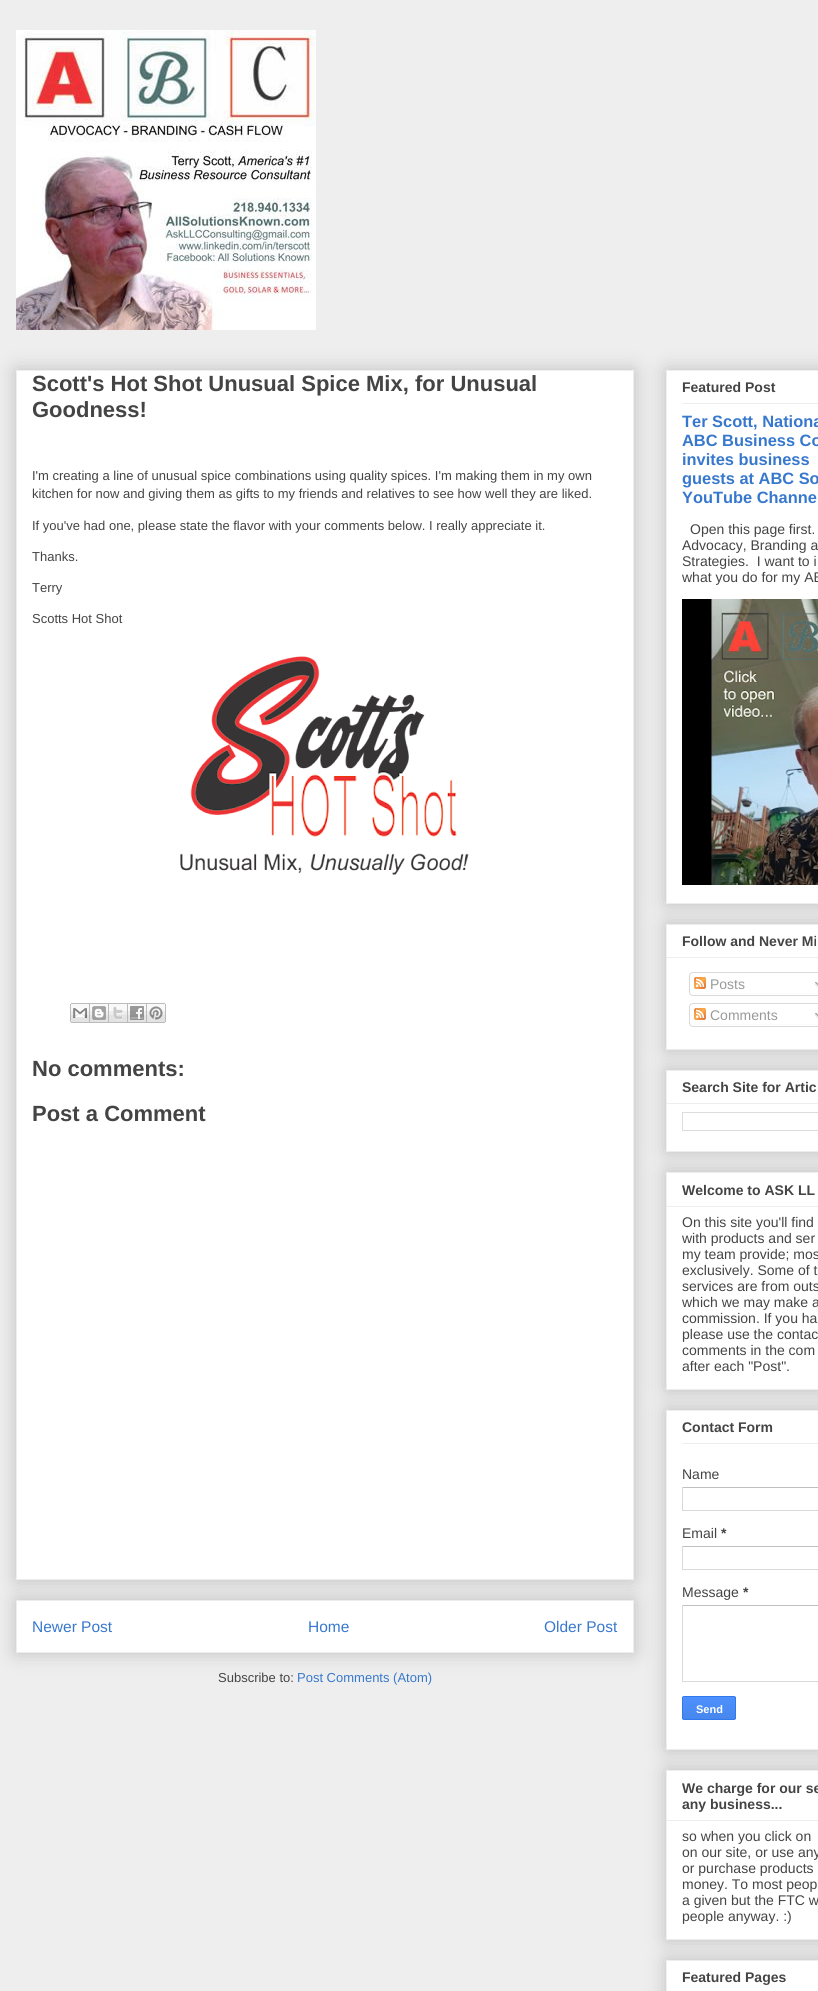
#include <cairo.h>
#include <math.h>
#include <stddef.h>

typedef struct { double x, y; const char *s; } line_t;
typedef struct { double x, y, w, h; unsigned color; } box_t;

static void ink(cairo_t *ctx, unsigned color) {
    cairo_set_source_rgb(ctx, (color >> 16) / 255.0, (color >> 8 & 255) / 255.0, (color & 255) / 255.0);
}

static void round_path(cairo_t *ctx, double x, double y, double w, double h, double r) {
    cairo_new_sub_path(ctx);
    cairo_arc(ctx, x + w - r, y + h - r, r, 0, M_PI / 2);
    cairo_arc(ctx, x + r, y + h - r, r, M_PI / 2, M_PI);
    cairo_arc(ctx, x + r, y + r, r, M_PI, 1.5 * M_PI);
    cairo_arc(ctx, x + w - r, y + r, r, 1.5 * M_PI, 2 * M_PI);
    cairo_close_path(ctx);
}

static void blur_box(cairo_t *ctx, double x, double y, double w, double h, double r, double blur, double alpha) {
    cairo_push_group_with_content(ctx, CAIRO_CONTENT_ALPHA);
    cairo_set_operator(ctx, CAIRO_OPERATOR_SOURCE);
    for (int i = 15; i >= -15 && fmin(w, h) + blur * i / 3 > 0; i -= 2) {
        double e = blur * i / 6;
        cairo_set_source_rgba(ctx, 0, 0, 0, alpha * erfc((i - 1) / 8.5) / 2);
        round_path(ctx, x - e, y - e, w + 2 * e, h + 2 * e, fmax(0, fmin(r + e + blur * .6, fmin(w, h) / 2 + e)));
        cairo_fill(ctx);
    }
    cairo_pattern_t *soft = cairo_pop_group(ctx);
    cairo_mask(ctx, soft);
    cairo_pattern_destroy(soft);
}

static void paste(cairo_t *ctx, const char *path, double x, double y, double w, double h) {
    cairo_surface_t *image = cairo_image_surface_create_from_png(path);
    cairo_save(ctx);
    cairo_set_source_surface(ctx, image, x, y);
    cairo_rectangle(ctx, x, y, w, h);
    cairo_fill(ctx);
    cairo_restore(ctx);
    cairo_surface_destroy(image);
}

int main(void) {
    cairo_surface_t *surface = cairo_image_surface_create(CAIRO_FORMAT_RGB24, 818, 1991);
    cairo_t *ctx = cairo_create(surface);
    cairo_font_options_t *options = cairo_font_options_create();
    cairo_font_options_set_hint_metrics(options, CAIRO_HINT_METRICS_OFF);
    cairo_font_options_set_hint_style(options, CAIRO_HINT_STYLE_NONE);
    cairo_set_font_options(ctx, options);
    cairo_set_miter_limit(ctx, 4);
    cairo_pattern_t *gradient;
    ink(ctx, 0xEEEEEE);
    cairo_paint(ctx);
    paste(ctx, "media/1.png", 16, 30, 300, 300);
    ink(ctx, 0x000000);
    blur_box(ctx, 16, 1600, 618, 53, 0, 10, 0.2);
    ink(ctx, 0xFFFFFF);
    cairo_rectangle(ctx, 16.5, 1600.5, 617, 52);
    cairo_fill_preserve(ctx);
    ink(ctx, 0xEEEEEE);
    cairo_set_line_width(ctx, 1);
    cairo_stroke(ctx);
    ink(ctx, 0x000000);
    blur_box(ctx, 16, 370, 618, 1210, 0, 10, 0.2);
    ink(ctx, 0xFFFFFF);
    cairo_rectangle(ctx, 16.5, 370.5, 617, 1209);
    cairo_fill_preserve(ctx);
    ink(ctx, 0xEEEEEE);
    cairo_stroke(ctx);
    cairo_select_font_face(ctx, "Liberation Sans", CAIRO_FONT_SLANT_NORMAL, CAIRO_FONT_WEIGHT_BOLD);
    cairo_set_font_size(ctx, 22);
    ink(ctx, 0x444444);
    cairo_move_to(ctx, 32, 391);
    cairo_show_text(ctx, "Scott's Hot Shot Unusual Spice Mix, for Unusual");
    cairo_move_to(ctx, 32, 417);
    cairo_show_text(ctx, "Goodness!");
    cairo_select_font_face(ctx, "Liberation Sans", CAIRO_FONT_SLANT_NORMAL, CAIRO_FONT_WEIGHT_NORMAL);
    cairo_set_font_size(ctx, 13);
    {
        static const line_t items[] = {
            {32, 480, "I'm creating a line of unusual spice combinations using quality spices. I'm making them in my own"},
            {32, 498, "kitchen for now and giving them as gifts to my friends and relatives to see how well they are liked."},
            {32, 530, "If you've had one, please state the flavor with your comments below. I really appreciate it."},
            {32, 561, "Thanks."},
            {32, 592, "Terry"},
            {32, 623, "Scotts Hot Shot"},
        };
        for (size_t i = 0; i < sizeof items / sizeof *items; i++) {
            cairo_move_to(ctx, items[i].x, items[i].y);
            cairo_show_text(ctx, items[i].s);
        }
    }
    paste(ctx, "media/2.png", 180, 656, 289, 219);
    paste(ctx, "media/3.png", 70, 1003, 20, 20);
    paste(ctx, "media/4.png", 90, 1003, 19, 20);
    paste(ctx, "media/5.png", 109, 1003, 19, 20);
    paste(ctx, "media/6.png", 128, 1003, 19, 20);
    paste(ctx, "media/7.png", 147, 1003, 19, 20);
    cairo_select_font_face(ctx, "Liberation Sans", CAIRO_FONT_SLANT_NORMAL, CAIRO_FONT_WEIGHT_BOLD);
    cairo_set_font_size(ctx, 22);
    cairo_move_to(ctx, 32, 1076);
    cairo_show_text(ctx, "No comments:");
    cairo_move_to(ctx, 32, 1121);
    cairo_show_text(ctx, "Post a Comment");
    cairo_select_font_face(ctx, "Liberation Sans", CAIRO_FONT_SLANT_NORMAL, CAIRO_FONT_WEIGHT_NORMAL);
    cairo_set_font_size(ctx, 15.5);
    ink(ctx, 0x3778CD);
    {
        static const line_t items[] = {
            {32, 1632, "Newer Post"},
            {308, 1632, "Home"},
            {544, 1632, "Older Post"},
        };
        for (size_t i = 0; i < sizeof items / sizeof *items; i++) {
            cairo_move_to(ctx, items[i].x, items[i].y);
            cairo_show_text(ctx, items[i].s);
        }
    }
    cairo_set_font_size(ctx, 13);
    ink(ctx, 0x444444);
    cairo_move_to(ctx, 218, 1682);
    cairo_show_text(ctx, "Subscribe to:");
    ink(ctx, 0x3778CD);
    cairo_move_to(ctx, 297, 1682);
    cairo_show_text(ctx, "Post Comments (Atom)");
    ink(ctx, 0x000000);
    blur_box(ctx, 666, 924, 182, 126, 0, 10, 0.2);
    ink(ctx, 0xFFFFFF);
    cairo_rectangle(ctx, 666.5, 924.5, 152, 125);
    cairo_fill_preserve(ctx);
    ink(ctx, 0xEEEEEE);
    cairo_stroke(ctx);
    ink(ctx, 0x000000);
    blur_box(ctx, 666, 370, 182, 534, 0, 10, 0.2);
    ink(ctx, 0xFFFFFF);
    cairo_rectangle(ctx, 666.5, 370.5, 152, 533);
    cairo_fill_preserve(ctx);
    ink(ctx, 0xEEEEEE);
    cairo_stroke(ctx);
    cairo_select_font_face(ctx, "Liberation Sans", CAIRO_FONT_SLANT_NORMAL, CAIRO_FONT_WEIGHT_BOLD);
    cairo_set_font_size(ctx, 14);
    ink(ctx, 0x444444);
    cairo_move_to(ctx, 682, 392);
    cairo_show_text(ctx, "Featured Post");
    ink(ctx, 0xEEEEEE);
    cairo_rectangle(ctx, 682, 403, 136, 1);
    cairo_fill(ctx);
    cairo_set_font_size(ctx, 16.4);
    ink(ctx, 0x3778CD);
    {
        static const line_t items[] = {
            {682, 427, "Ter Scott, Nationa"},
            {682, 446, "ABC Business Co"},
            {682, 465, "invites business"},
            {682, 484, "guests at ABC So"},
            {682, 503, "YouTube Channe"},
        };
        for (size_t i = 0; i < sizeof items / sizeof *items; i++) {
            cairo_move_to(ctx, items[i].x, items[i].y);
            cairo_show_text(ctx, items[i].s);
        }
    }
    cairo_select_font_face(ctx, "Liberation Sans", CAIRO_FONT_SLANT_NORMAL, CAIRO_FONT_WEIGHT_NORMAL);
    cairo_set_font_size(ctx, 14);
    ink(ctx, 0x444444);
    {
        static const line_t items[] = {
            {690, 534, "Open this page first."},
            {682, 550, "Advocacy, Branding a"},
            {682, 566, "Strategies.  I want to i"},
            {682, 582, "what you do for my AB"},
        };
        for (size_t i = 0; i < sizeof items / sizeof *items; i++) {
            cairo_move_to(ctx, items[i].x, items[i].y);
            cairo_show_text(ctx, items[i].s);
        }
    }
    paste(ctx, "media/8.png", 682, 599, 136, 286);
    cairo_select_font_face(ctx, "Liberation Sans", CAIRO_FONT_SLANT_NORMAL, CAIRO_FONT_WEIGHT_BOLD);
    cairo_move_to(ctx, 682, 946);
    cairo_show_text(ctx, "Follow and Never Mi");
    ink(ctx, 0xEEEEEE);
    cairo_rectangle(ctx, 667, 957, 151, 1);
    cairo_fill(ctx);
    paste(ctx, "media/9.png", 689, 972, 129, 21);
    paste(ctx, "media/10.png", 694, 977, 12, 12);
    cairo_select_font_face(ctx, "Liberation Sans", CAIRO_FONT_SLANT_NORMAL, CAIRO_FONT_WEIGHT_NORMAL);
    ink(ctx, 0x999999);
    cairo_move_to(ctx, 710, 989);
    cairo_show_text(ctx, "Posts");
    paste(ctx, "media/11.png", 814, 981, 4, 7);
    paste(ctx, "media/12.png", 689, 993, 129, 3);
    paste(ctx, "media/9.png", 689, 1003, 129, 21);
    paste(ctx, "media/10.png", 694, 1008, 12, 12);
    cairo_move_to(ctx, 710, 1020);
    cairo_show_text(ctx, "Comments");
    paste(ctx, "media/11.png", 814, 1012, 4, 7);
    paste(ctx, "media/12.png", 689, 1024, 129, 3);
    ink(ctx, 0x000000);
    blur_box(ctx, 666, 1070, 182, 82, 0, 10, 0.2);
    ink(ctx, 0xFFFFFF);
    cairo_rectangle(ctx, 666.5, 1070.5, 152, 81);
    cairo_fill_preserve(ctx);
    ink(ctx, 0xEEEEEE);
    cairo_stroke(ctx);
    cairo_select_font_face(ctx, "Liberation Sans", CAIRO_FONT_SLANT_NORMAL, CAIRO_FONT_WEIGHT_BOLD);
    ink(ctx, 0x444444);
    cairo_move_to(ctx, 682, 1092);
    cairo_show_text(ctx, "Search Site for Artic");
    ink(ctx, 0xEEEEEE);
    cairo_rectangle(ctx, 667, 1103, 151, 1);
    cairo_fill(ctx);
    cairo_rectangle(ctx, 682.5, 1112.5, 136, 18);
    ink(ctx, 0xDDDDDD);
    cairo_stroke(ctx);
    ink(ctx, 0x000000);
    blur_box(ctx, 666, 1172, 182, 218, 0, 10, 0.2);
    ink(ctx, 0xFFFFFF);
    cairo_rectangle(ctx, 666.5, 1172.5, 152, 217);
    cairo_fill_preserve(ctx);
    ink(ctx, 0xEEEEEE);
    cairo_stroke(ctx);
    ink(ctx, 0x444444);
    cairo_move_to(ctx, 682, 1195);
    cairo_show_text(ctx, "Welcome to ASK LL");
    ink(ctx, 0xEEEEEE);
    cairo_rectangle(ctx, 667, 1206, 151, 1);
    cairo_fill(ctx);
    cairo_select_font_face(ctx, "Liberation Sans", CAIRO_FONT_SLANT_NORMAL, CAIRO_FONT_WEIGHT_NORMAL);
    ink(ctx, 0x444444);
    {
        static const line_t items[] = {
            {682, 1227, "On this site you'll find"},
            {682, 1243, "with products and ser"},
            {682, 1259, "my team provide; mos"},
            {682, 1275, "exclusively. Some of t"},
            {682, 1291, "services are from outs"},
            {682, 1307, "which we may make a"},
            {682, 1323, "commission. If you ha"},
            {682, 1339, "please use the contac"},
            {682, 1355, "comments in the com"},
            {682, 1371, "after each \"Post\"."},
        };
        for (size_t i = 0; i < sizeof items / sizeof *items; i++) {
            cairo_move_to(ctx, items[i].x, items[i].y);
            cairo_show_text(ctx, items[i].s);
        }
    }
    ink(ctx, 0x000000);
    blur_box(ctx, 666, 1410, 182, 340, 0, 10, 0.2);
    ink(ctx, 0xFFFFFF);
    cairo_rectangle(ctx, 666.5, 1410.5, 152, 339);
    cairo_fill_preserve(ctx);
    ink(ctx, 0xEEEEEE);
    cairo_stroke(ctx);
    cairo_select_font_face(ctx, "Liberation Sans", CAIRO_FONT_SLANT_NORMAL, CAIRO_FONT_WEIGHT_BOLD);
    ink(ctx, 0x444444);
    cairo_move_to(ctx, 682, 1432);
    cairo_show_text(ctx, "Contact Form");
    ink(ctx, 0xEEEEEE);
    cairo_rectangle(ctx, 682, 1443, 136, 1);
    cairo_fill(ctx);
    cairo_select_font_face(ctx, "Liberation Sans", CAIRO_FONT_SLANT_NORMAL, CAIRO_FONT_WEIGHT_NORMAL);
    ink(ctx, 0x444444);
    cairo_move_to(ctx, 682, 1479);
    cairo_show_text(ctx, "Name");
    {
        static const box_t items[] = {
            {682, 1487, 136, 1, 0xC0C0C0},
            {682, 1510, 136, 1, 0xD9D9D9},
            {682, 1487, 1, 24, 0xD9D9D9},
        };
        for (size_t i = 0; i < sizeof items / sizeof *items; i++) {
            ink(ctx, items[i].color);
            cairo_rectangle(ctx, items[i].x, items[i].y, items[i].w, items[i].h);
            cairo_fill(ctx);
        }
    }
    ink(ctx, 0x444444);
    cairo_move_to(ctx, 682, 1538);
    cairo_show_text(ctx, "Email");
    cairo_select_font_face(ctx, "Liberation Sans", CAIRO_FONT_SLANT_NORMAL, CAIRO_FONT_WEIGHT_BOLD);
    cairo_move_to(ctx, 721, 1538);
    cairo_show_text(ctx, "*");
    {
        static const box_t items[] = {
            {682, 1546, 136, 1, 0xC0C0C0},
            {682, 1569, 136, 1, 0xD9D9D9},
            {682, 1546, 1, 24, 0xD9D9D9},
        };
        for (size_t i = 0; i < sizeof items / sizeof *items; i++) {
            ink(ctx, items[i].color);
            cairo_rectangle(ctx, items[i].x, items[i].y, items[i].w, items[i].h);
            cairo_fill(ctx);
        }
    }
    cairo_select_font_face(ctx, "Liberation Sans", CAIRO_FONT_SLANT_NORMAL, CAIRO_FONT_WEIGHT_NORMAL);
    ink(ctx, 0x444444);
    cairo_move_to(ctx, 682, 1597);
    cairo_show_text(ctx, "Message");
    cairo_select_font_face(ctx, "Liberation Sans", CAIRO_FONT_SLANT_NORMAL, CAIRO_FONT_WEIGHT_BOLD);
    cairo_move_to(ctx, 743, 1597);
    cairo_show_text(ctx, "*");
    {
        static const box_t items[] = {
            {682, 1605, 136, 1, 0xC0C0C0},
            {682, 1681, 136, 1, 0xD9D9D9},
            {682, 1605, 1, 77, 0xD9D9D9},
        };
        for (size_t i = 0; i < sizeof items / sizeof *items; i++) {
            ink(ctx, items[i].color);
            cairo_rectangle(ctx, items[i].x, items[i].y, items[i].w, items[i].h);
            cairo_fill(ctx);
        }
    }
    cairo_save(ctx);
    round_path(ctx, 682, 1696, 54, 24, 2);
    cairo_clip(ctx);
    gradient = cairo_pattern_create_linear(709, 1697, 709, 1719);
    cairo_pattern_add_color_stop_rgba(gradient, 0, 0.302, 0.565, 0.996, 1);
    cairo_pattern_add_color_stop_rgba(gradient, 1, 0.278, 0.529, 0.929, 1);
    cairo_set_source(ctx, gradient);
    cairo_pattern_destroy(gradient);
    cairo_rectangle(ctx, 682, 1697, 54, 22);
    cairo_fill(ctx);
    cairo_restore(ctx);
    round_path(ctx, 682.5, 1696.5, 53, 23, 1.5);
    ink(ctx, 0x3079ED);
    cairo_stroke(ctx);
    cairo_set_font_size(ctx, 11);
    ink(ctx, 0xFFFFFF);
    cairo_move_to(ctx, 696, 1713);
    cairo_show_text(ctx, "Send");
    ink(ctx, 0x000000);
    blur_box(ctx, 666, 1770, 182, 170, 0, 10, 0.2);
    ink(ctx, 0xFFFFFF);
    cairo_rectangle(ctx, 666.5, 1770.5, 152, 169);
    cairo_fill_preserve(ctx);
    ink(ctx, 0xEEEEEE);
    cairo_stroke(ctx);
    cairo_set_font_size(ctx, 14);
    ink(ctx, 0x444444);
    cairo_move_to(ctx, 682, 1793);
    cairo_show_text(ctx, "We charge for our se");
    cairo_move_to(ctx, 682, 1809);
    cairo_show_text(ctx, "any business...");
    ink(ctx, 0xEEEEEE);
    cairo_rectangle(ctx, 667, 1820, 151, 1);
    cairo_fill(ctx);
    cairo_select_font_face(ctx, "Liberation Sans", CAIRO_FONT_SLANT_NORMAL, CAIRO_FONT_WEIGHT_NORMAL);
    ink(ctx, 0x444444);
    {
        static const line_t items[] = {
            {682, 1841, "so when you click on"},
            {682, 1857, "on our site, or use any"},
            {682, 1873, "or purchase products"},
            {682, 1889, "money. To most peop"},
            {682, 1905, "a given but the FTC w"},
            {682, 1921, "people anyway. :)"},
        };
        for (size_t i = 0; i < sizeof items / sizeof *items; i++) {
            cairo_move_to(ctx, items[i].x, items[i].y);
            cairo_show_text(ctx, items[i].s);
        }
    }
    ink(ctx, 0x000000);
    blur_box(ctx, 666, 1960, 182, 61, 0, 10, 0.2);
    ink(ctx, 0xFFFFFF);
    cairo_rectangle(ctx, 666.5, 1960.5, 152, 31);
    cairo_fill_preserve(ctx);
    ink(ctx, 0xEEEEEE);
    cairo_stroke(ctx);
    cairo_select_font_face(ctx, "Liberation Sans", CAIRO_FONT_SLANT_NORMAL, CAIRO_FONT_WEIGHT_BOLD);
    ink(ctx, 0x444444);
    cairo_move_to(ctx, 682, 1982);
    cairo_show_text(ctx, "Featured Pages");
    cairo_surface_write_to_png(surface, "image.png");
    cairo_font_options_destroy(options);
    cairo_destroy(ctx);
    cairo_surface_destroy(surface);
    return 0;
}
